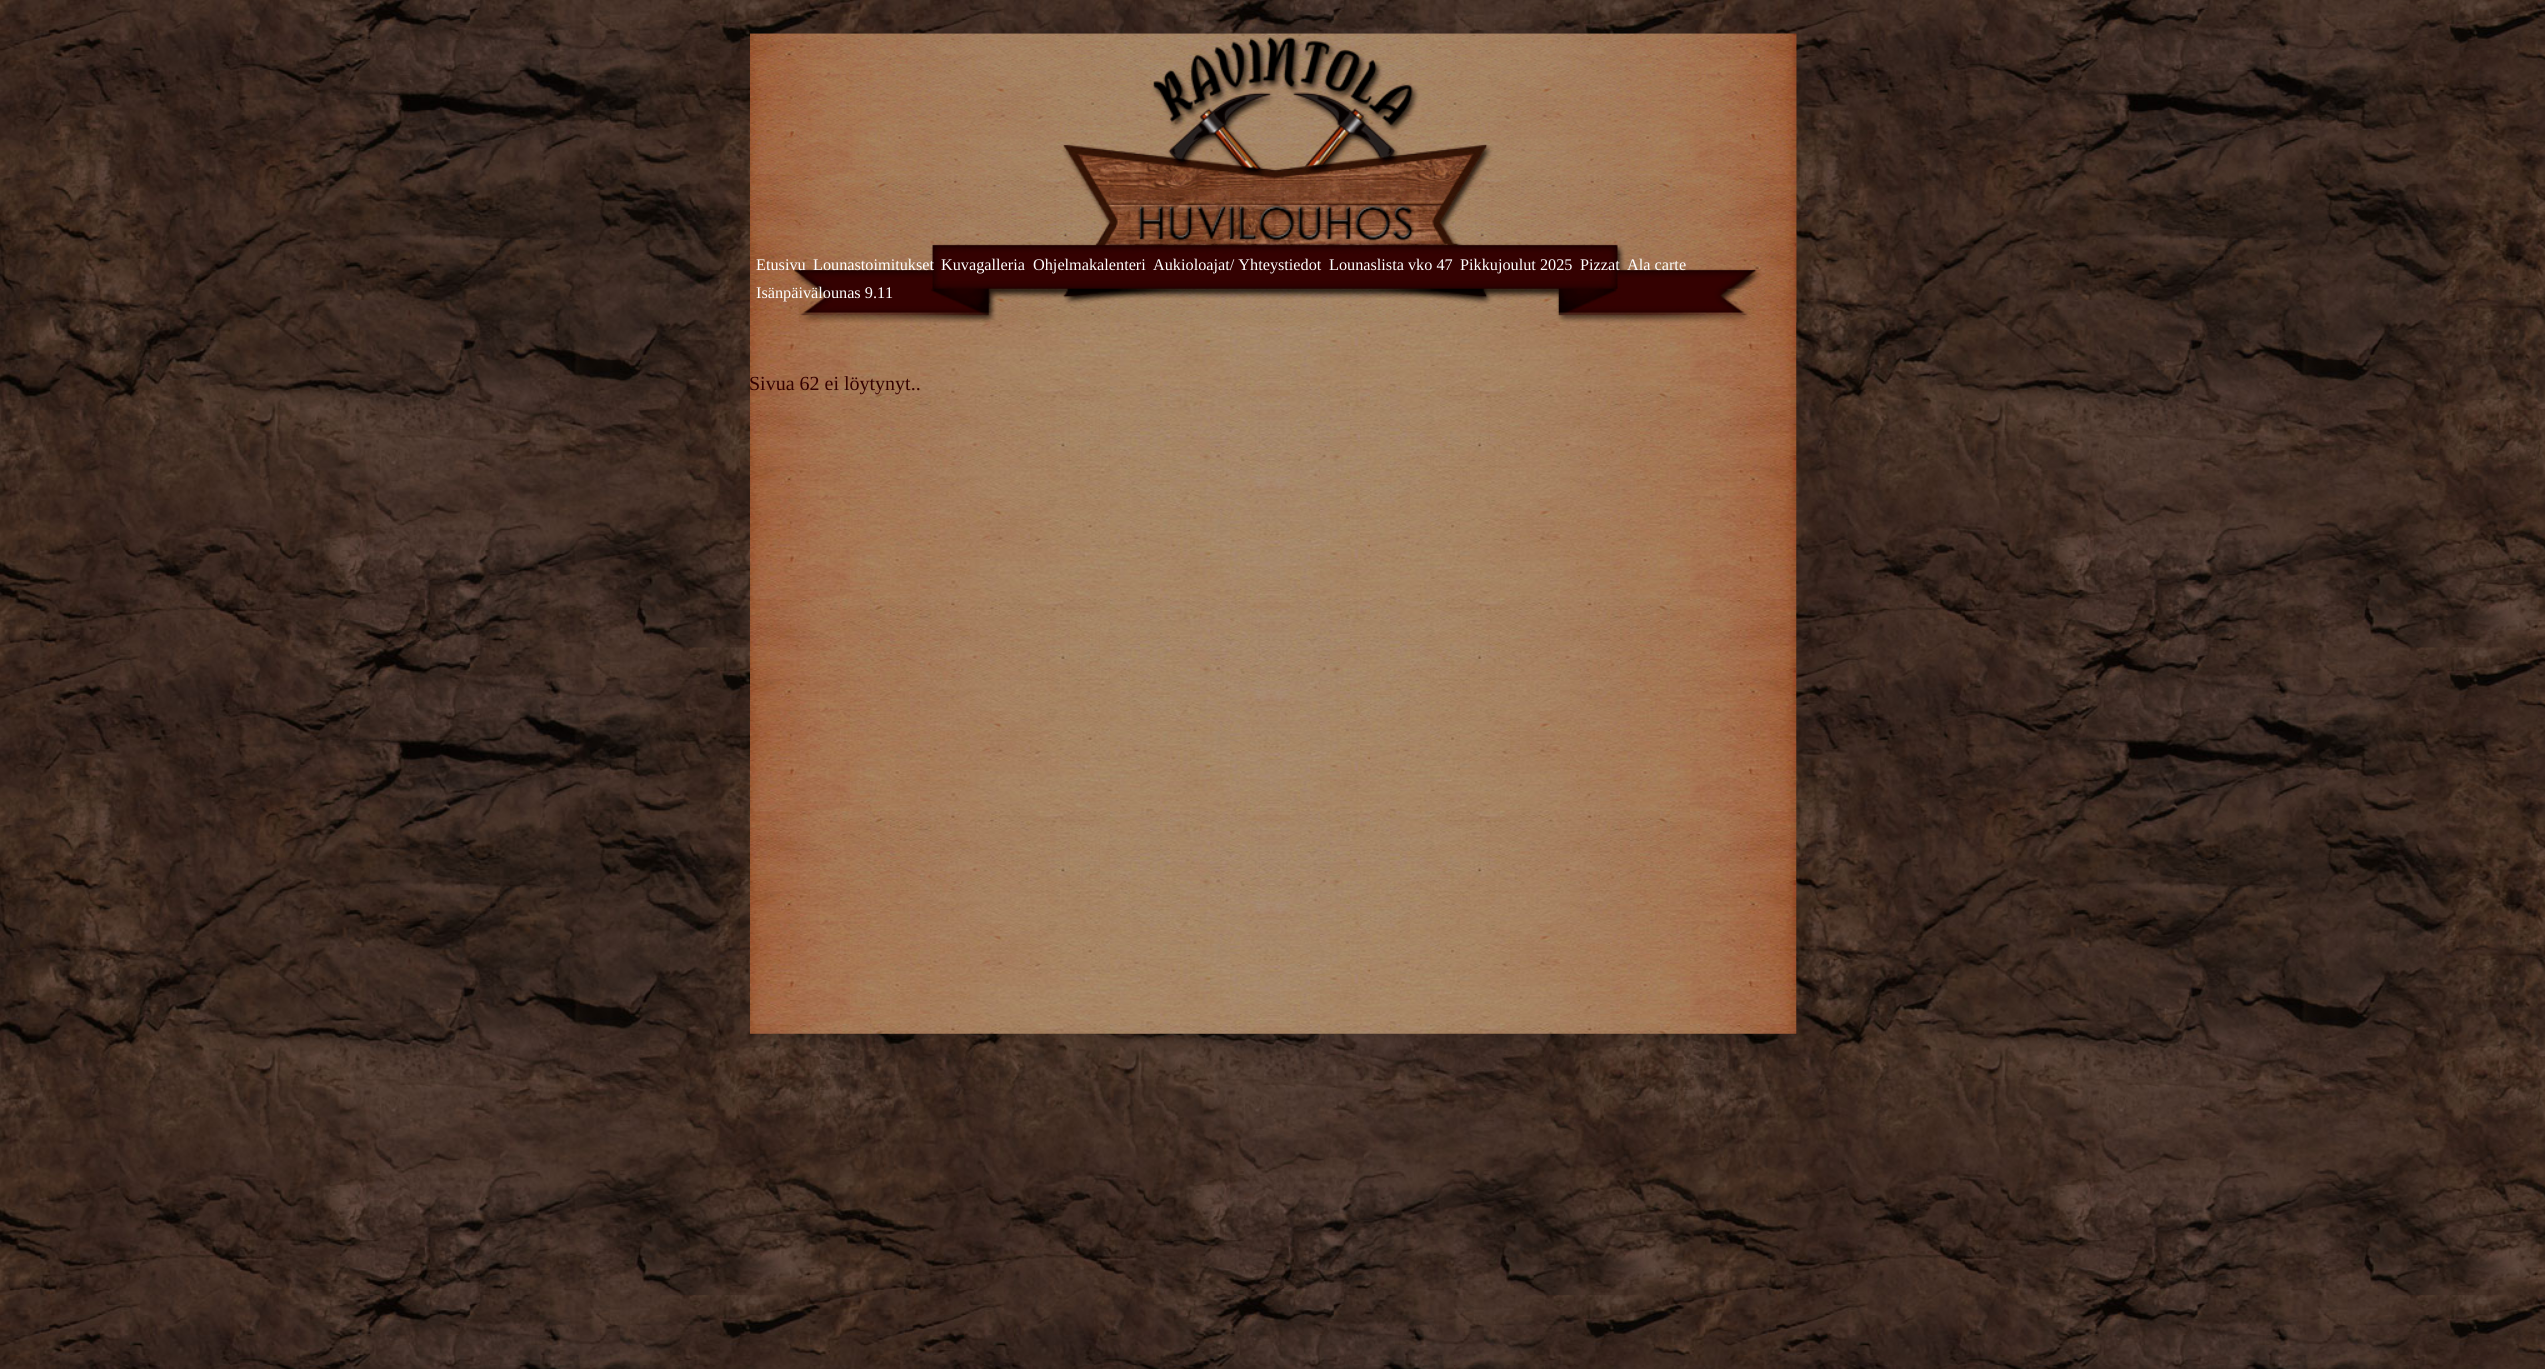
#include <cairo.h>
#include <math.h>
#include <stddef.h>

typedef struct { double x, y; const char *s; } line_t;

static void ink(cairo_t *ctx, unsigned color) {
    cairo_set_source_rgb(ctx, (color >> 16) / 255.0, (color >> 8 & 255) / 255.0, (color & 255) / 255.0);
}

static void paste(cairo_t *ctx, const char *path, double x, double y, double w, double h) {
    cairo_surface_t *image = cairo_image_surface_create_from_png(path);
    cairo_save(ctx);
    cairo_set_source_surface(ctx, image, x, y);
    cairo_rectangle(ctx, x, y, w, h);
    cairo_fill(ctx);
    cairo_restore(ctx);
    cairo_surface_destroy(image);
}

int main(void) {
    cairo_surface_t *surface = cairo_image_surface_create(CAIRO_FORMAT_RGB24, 2545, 1369);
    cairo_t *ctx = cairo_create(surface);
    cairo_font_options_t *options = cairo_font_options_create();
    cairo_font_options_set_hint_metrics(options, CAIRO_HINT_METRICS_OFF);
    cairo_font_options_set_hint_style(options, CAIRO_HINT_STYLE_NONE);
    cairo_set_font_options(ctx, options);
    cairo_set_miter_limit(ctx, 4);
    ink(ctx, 0xFFFFFF);
    cairo_paint(ctx);
    paste(ctx, "media/1.png", 0, 0, 2545, 1369);
    paste(ctx, "media/2.png", 750, 33, 1047, 1001);
    paste(ctx, "media/3.png", 750, 33, 1047, 214);
    paste(ctx, "media/4.png", 750, 243, 1047, 47);
    cairo_select_font_face(ctx, "Liberation Serif", CAIRO_FONT_SLANT_NORMAL, CAIRO_FONT_WEIGHT_NORMAL);
    cairo_set_font_size(ctx, 16.25);
    ink(ctx, 0xFFFFFF);
    {
        static const line_t items[] = {
            {756, 270, "Etusivu"},
            {813, 270, "Lounastoimitukset"},
            {941, 270, "Kuvagalleria"},
            {1033, 270, "Ohjelmakalenteri"},
            {1153, 270, "Aukioloajat/ Yhteystiedot"},
            {1329, 270, "Lounaslista vko 47"},
            {1460, 270, "Pikkujoulut 2025"},
            {1580, 270, "Pizzat"},
            {1627, 270, "Ala carte"},
        };
        for (size_t i = 0; i < sizeof items / sizeof *items; i++) {
            cairo_move_to(ctx, items[i].x, items[i].y);
            cairo_show_text(ctx, items[i].s);
        }
    }
    paste(ctx, "media/5.png", 750, 288, 1047, 35);
    cairo_move_to(ctx, 756, 298);
    cairo_show_text(ctx, "Isänpäivälounas 9.11");
    cairo_set_font_size(ctx, 20);
    ink(ctx, 0x340000);
    cairo_move_to(ctx, 749, 390);
    cairo_show_text(ctx, "Sivua 62 ei löytynyt..");
    cairo_surface_write_to_png(surface, "image.png");
    cairo_font_options_destroy(options);
    cairo_destroy(ctx);
    cairo_surface_destroy(surface);
    return 0;
}
